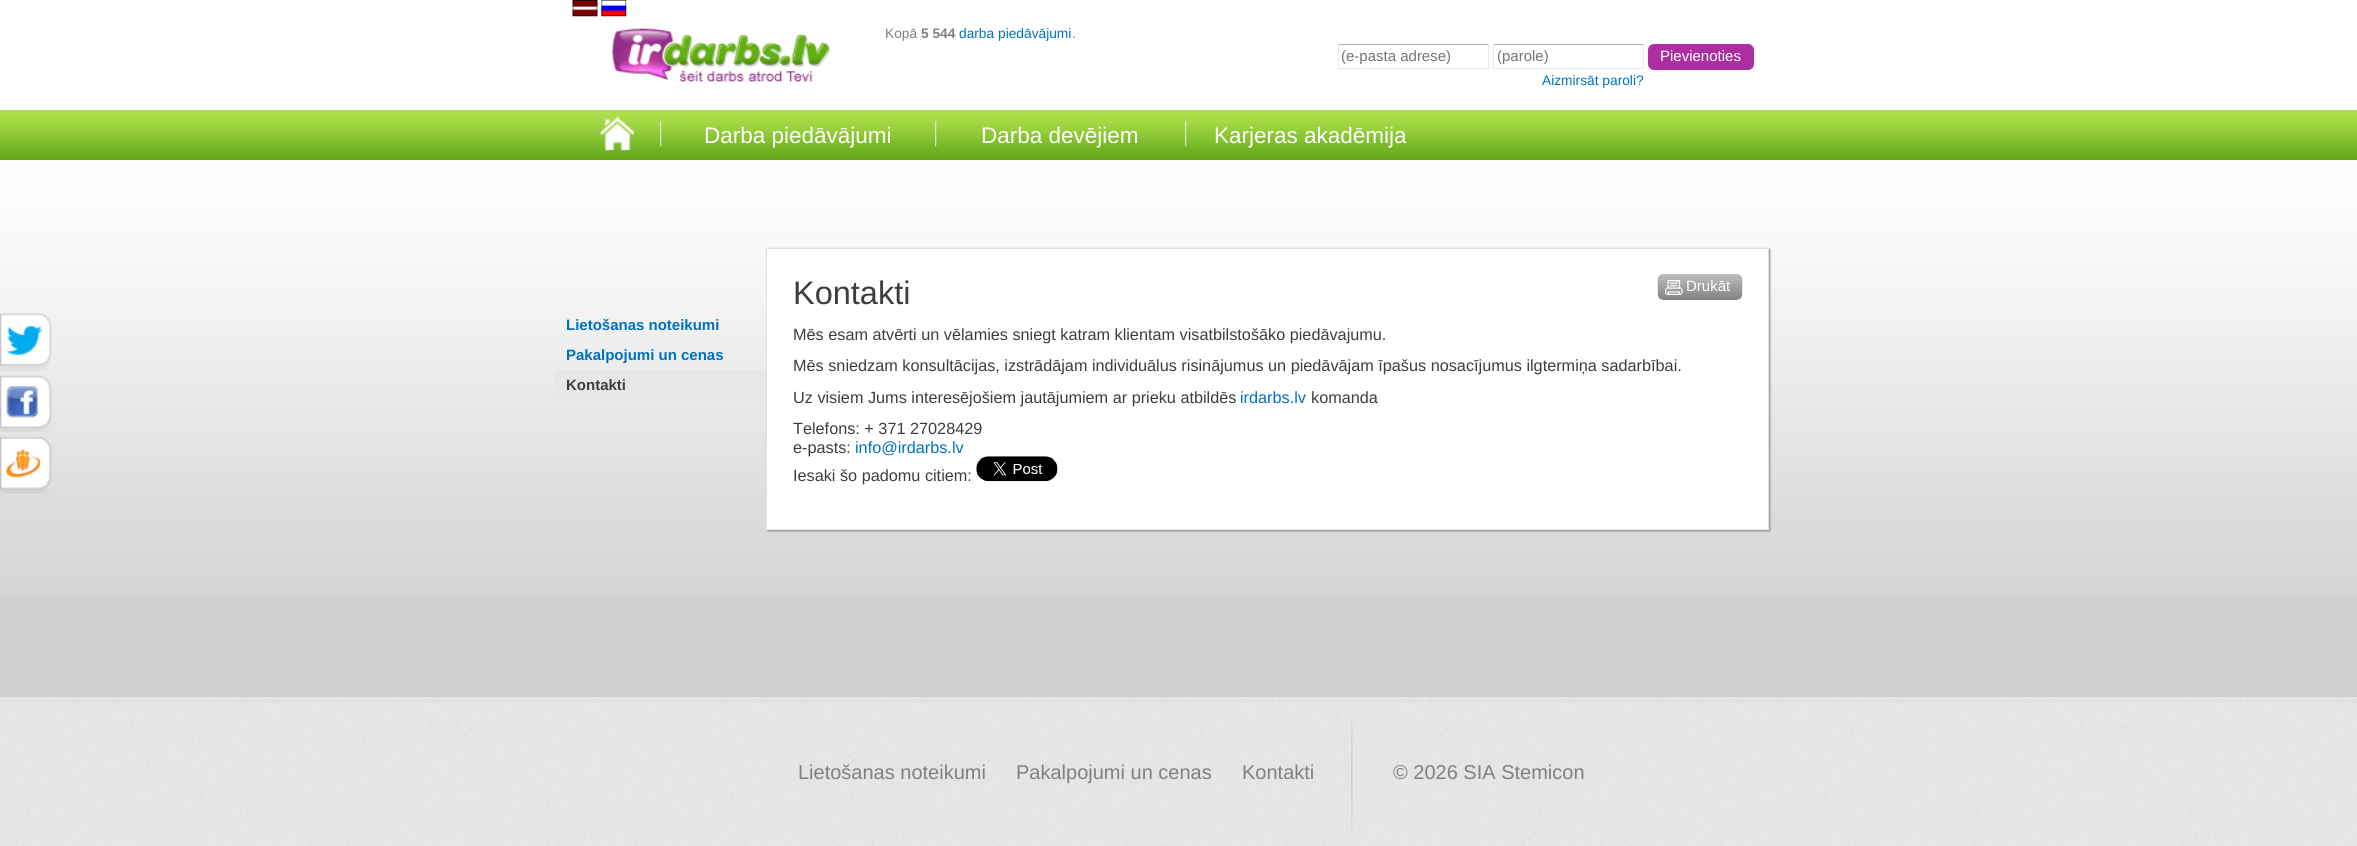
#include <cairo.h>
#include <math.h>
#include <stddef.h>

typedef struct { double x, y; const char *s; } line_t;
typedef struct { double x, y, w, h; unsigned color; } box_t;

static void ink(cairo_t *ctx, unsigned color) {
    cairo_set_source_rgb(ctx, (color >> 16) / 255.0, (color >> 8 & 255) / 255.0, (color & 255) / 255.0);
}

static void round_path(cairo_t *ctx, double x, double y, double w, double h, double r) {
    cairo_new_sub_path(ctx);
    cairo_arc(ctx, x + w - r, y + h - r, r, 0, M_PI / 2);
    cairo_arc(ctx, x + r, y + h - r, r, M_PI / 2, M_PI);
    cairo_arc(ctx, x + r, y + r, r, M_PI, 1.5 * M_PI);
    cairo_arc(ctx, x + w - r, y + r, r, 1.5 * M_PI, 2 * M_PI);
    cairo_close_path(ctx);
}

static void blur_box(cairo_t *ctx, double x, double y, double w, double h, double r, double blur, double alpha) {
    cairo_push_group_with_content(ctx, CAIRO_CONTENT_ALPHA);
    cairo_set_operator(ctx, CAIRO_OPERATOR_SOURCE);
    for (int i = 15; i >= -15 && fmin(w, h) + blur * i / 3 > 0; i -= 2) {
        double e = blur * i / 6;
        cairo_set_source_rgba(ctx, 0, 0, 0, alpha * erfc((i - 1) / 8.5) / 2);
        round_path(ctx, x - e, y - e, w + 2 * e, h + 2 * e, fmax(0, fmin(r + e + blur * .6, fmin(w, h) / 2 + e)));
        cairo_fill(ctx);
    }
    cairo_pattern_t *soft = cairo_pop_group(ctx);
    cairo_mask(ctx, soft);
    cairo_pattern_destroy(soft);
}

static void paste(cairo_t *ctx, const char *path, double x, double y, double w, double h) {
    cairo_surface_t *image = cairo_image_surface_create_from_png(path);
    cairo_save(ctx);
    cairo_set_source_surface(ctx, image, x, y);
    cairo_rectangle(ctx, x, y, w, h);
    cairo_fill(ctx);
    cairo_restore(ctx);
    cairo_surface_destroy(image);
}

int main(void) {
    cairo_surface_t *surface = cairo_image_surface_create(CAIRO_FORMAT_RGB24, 2357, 846);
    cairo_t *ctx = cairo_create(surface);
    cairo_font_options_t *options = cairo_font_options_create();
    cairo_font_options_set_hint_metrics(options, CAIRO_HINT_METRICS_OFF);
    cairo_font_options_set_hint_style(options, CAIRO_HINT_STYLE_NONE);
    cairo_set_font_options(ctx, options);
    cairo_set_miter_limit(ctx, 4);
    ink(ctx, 0xD0D0D0);
    cairo_paint(ctx);
    paste(ctx, "media/1.png", 0, 0, 2357, 596);
    paste(ctx, "media/2.png", 0, 313, 52, 58);
    paste(ctx, "media/3.png", 0, 375, 52, 57);
    paste(ctx, "media/4.png", 0, 436, 52, 58);
    paste(ctx, "media/5.png", 572, 0, 26, 17);
    paste(ctx, "media/6.png", 601, 0, 26, 17);
    paste(ctx, "media/7.png", 612, 28, 219, 54);
    cairo_select_font_face(ctx, "Liberation Sans", CAIRO_FONT_SLANT_NORMAL, CAIRO_FONT_WEIGHT_NORMAL);
    cairo_set_font_size(ctx, 13.75);
    ink(ctx, 0x808080);
    cairo_move_to(ctx, 885, 38);
    cairo_show_text(ctx, "Kopā");
    cairo_select_font_face(ctx, "Liberation Sans", CAIRO_FONT_SLANT_NORMAL, CAIRO_FONT_WEIGHT_BOLD);
    cairo_move_to(ctx, 921, 38);
    cairo_show_text(ctx, "5 544");
    cairo_select_font_face(ctx, "Liberation Sans", CAIRO_FONT_SLANT_NORMAL, CAIRO_FONT_WEIGHT_NORMAL);
    ink(ctx, 0x0171BD);
    cairo_move_to(ctx, 959, 38);
    cairo_show_text(ctx, "darba piedāvājumi");
    ink(ctx, 0x808080);
    cairo_move_to(ctx, 1072, 38);
    cairo_show_text(ctx, ".");
    {
        static const box_t items[] = {
            {1338, 44, 151, 1, 0xABADB3},
            {1488, 44, 1, 25, 0xE3E9EF},
            {1338, 68, 151, 1, 0xE3E9EF},
            {1338, 44, 1, 25, 0xE3E9EF},
        };
        for (size_t i = 0; i < sizeof items / sizeof *items; i++) {
            ink(ctx, items[i].color);
            cairo_rectangle(ctx, items[i].x, items[i].y, items[i].w, items[i].h);
            cairo_fill(ctx);
        }
    }
    cairo_set_font_size(ctx, 15);
    ink(ctx, 0x757575);
    cairo_move_to(ctx, 1341, 61);
    cairo_show_text(ctx, "(e-pasta adrese)");
    {
        static const box_t items[] = {
            {1493, 44, 151, 1, 0xABADB3},
            {1643, 44, 1, 25, 0xE3E9EF},
            {1493, 68, 151, 1, 0xE3E9EF},
            {1493, 44, 1, 25, 0xE3E9EF},
        };
        for (size_t i = 0; i < sizeof items / sizeof *items; i++) {
            ink(ctx, items[i].color);
            cairo_rectangle(ctx, items[i].x, items[i].y, items[i].w, items[i].h);
            cairo_fill(ctx);
        }
    }
    ink(ctx, 0x757575);
    cairo_move_to(ctx, 1497, 61);
    cairo_show_text(ctx, "(parole)");
    ink(ctx, 0xAC2EA2);
    round_path(ctx, 1648, 44, 106, 26, 6);
    cairo_fill(ctx);
    ink(ctx, 0xFFFFFF);
    cairo_move_to(ctx, 1660, 61);
    cairo_show_text(ctx, "Pievienoties");
    cairo_set_font_size(ctx, 13.75);
    ink(ctx, 0x0171BD);
    cairo_move_to(ctx, 1542, 85);
    cairo_show_text(ctx, "Aizmirsāt paroli?");
    paste(ctx, "media/8.png", 0, 110, 2357, 50);
    paste(ctx, "media/9.png", 599, 116, 35, 35);
    paste(ctx, "media/10.png", 660, 121, 2, 28);
    cairo_set_font_size(ctx, 22.5);
    ink(ctx, 0xFFFFFF);
    cairo_move_to(ctx, 704, 143);
    cairo_show_text(ctx, "Darba piedāvājumi");
    paste(ctx, "media/10.png", 935, 121, 2, 28);
    cairo_move_to(ctx, 981, 143);
    cairo_show_text(ctx, "Darba devējiem");
    paste(ctx, "media/10.png", 1185, 121, 2, 28);
    cairo_move_to(ctx, 1214, 143);
    cairo_show_text(ctx, "Karjeras akadēmija");
    cairo_select_font_face(ctx, "Liberation Sans", CAIRO_FONT_SLANT_NORMAL, CAIRO_FONT_WEIGHT_BOLD);
    cairo_set_font_size(ctx, 15);
    ink(ctx, 0x0171BD);
    cairo_move_to(ctx, 566, 330);
    cairo_show_text(ctx, "Lietošanas noteikumi");
    cairo_move_to(ctx, 566, 360);
    cairo_show_text(ctx, "Pakalpojumi un cenas");
    ink(ctx, 0xE7E7E7);
    cairo_new_path(ctx);
    cairo_move_to(ctx, 560, 370);
    cairo_line_to(ctx, 766, 370);
    cairo_line_to(ctx, 766, 400);
    cairo_line_to(ctx, 560, 400);
    cairo_curve_to(ctx, 556.5, 400, 554, 397.5, 554, 394);
    cairo_line_to(ctx, 554, 376);
    cairo_curve_to(ctx, 554, 372.5, 556.5, 370, 560, 370);
    cairo_close_path(ctx);
    cairo_fill(ctx);
    ink(ctx, 0x3D3D3D);
    cairo_move_to(ctx, 566, 390);
    cairo_show_text(ctx, "Kontakti");
    ink(ctx, 0x888888);
    blur_box(ctx, 768, 249, 1002, 282, 0, 1, 1);
    ink(ctx, 0xFFFFFF);
    cairo_rectangle(ctx, 766.5, 248.5, 1002, 281);
    cairo_fill_preserve(ctx);
    ink(ctx, 0xE1E1E1);
    cairo_set_line_width(ctx, 1);
    cairo_stroke(ctx);
    cairo_select_font_face(ctx, "Liberation Sans", CAIRO_FONT_SLANT_NORMAL, CAIRO_FONT_WEIGHT_NORMAL);
    cairo_set_font_size(ctx, 32.5);
    ink(ctx, 0x3D3D3D);
    cairo_move_to(ctx, 793, 304);
    cairo_show_text(ctx, "Kontakti");
    paste(ctx, "media/11.png", 1657, 273, 86, 27);
    cairo_set_font_size(ctx, 15);
    ink(ctx, 0xFFFFFF);
    cairo_move_to(ctx, 1686, 291);
    cairo_show_text(ctx, "Drukāt");
    cairo_set_font_size(ctx, 16.25);
    ink(ctx, 0x3D3D3D);
    {
        static const line_t items[] = {
            {793, 340, "Mēs esam atvērti un vēlamies sniegt katram klientam visatbilstošāko piedāvajumu."},
            {793, 371, "Mēs sniedzam konsultācijas, izstrādājam individuālus risinājumus un piedāvājam īpašus nosacījumus ilgtermiņa sadarbībai."},
            {793, 403, "Uz visiem Jums interesējošiem jautājumiem ar prieku atbildēs"},
        };
        for (size_t i = 0; i < sizeof items / sizeof *items; i++) {
            cairo_move_to(ctx, items[i].x, items[i].y);
            cairo_show_text(ctx, items[i].s);
        }
    }
    ink(ctx, 0x0171BD);
    cairo_move_to(ctx, 1240, 403);
    cairo_show_text(ctx, "irdarbs.lv");
    ink(ctx, 0x3D3D3D);
    {
        static const line_t items[] = {
            {1311, 403, "komanda"},
            {793, 434, "Telefons: + 371 27028429"},
            {793, 453, "e-pasts:"},
        };
        for (size_t i = 0; i < sizeof items / sizeof *items; i++) {
            cairo_move_to(ctx, items[i].x, items[i].y);
            cairo_show_text(ctx, items[i].s);
        }
    }
    ink(ctx, 0x0171BD);
    cairo_move_to(ctx, 855, 453);
    cairo_show_text(ctx, "info@irdarbs.lv");
    ink(ctx, 0x3D3D3D);
    cairo_move_to(ctx, 793, 481);
    cairo_show_text(ctx, "Iesaki šo padomu citiem:");
    paste(ctx, "media/12.png", 976, 456, 82, 26);
    paste(ctx, "media/13.png", 0, 697, 2357, 149);
    cairo_set_font_size(ctx, 20);
    ink(ctx, 0x808080);
    {
        static const line_t items[] = {
            {798, 779, "Lietošanas noteikumi"},
            {1016, 779, "Pakalpojumi un cenas"},
            {1242, 779, "Kontakti"},
        };
        for (size_t i = 0; i < sizeof items / sizeof *items; i++) {
            cairo_move_to(ctx, items[i].x, items[i].y);
            cairo_show_text(ctx, items[i].s);
        }
    }
    paste(ctx, "media/14.png", 1345, 711, 17, 129);
    cairo_move_to(ctx, 1393, 779);
    cairo_show_text(ctx, "© 2026 SIA Stemicon");
    cairo_surface_write_to_png(surface, "image.png");
    cairo_font_options_destroy(options);
    cairo_destroy(ctx);
    cairo_surface_destroy(surface);
    return 0;
}
